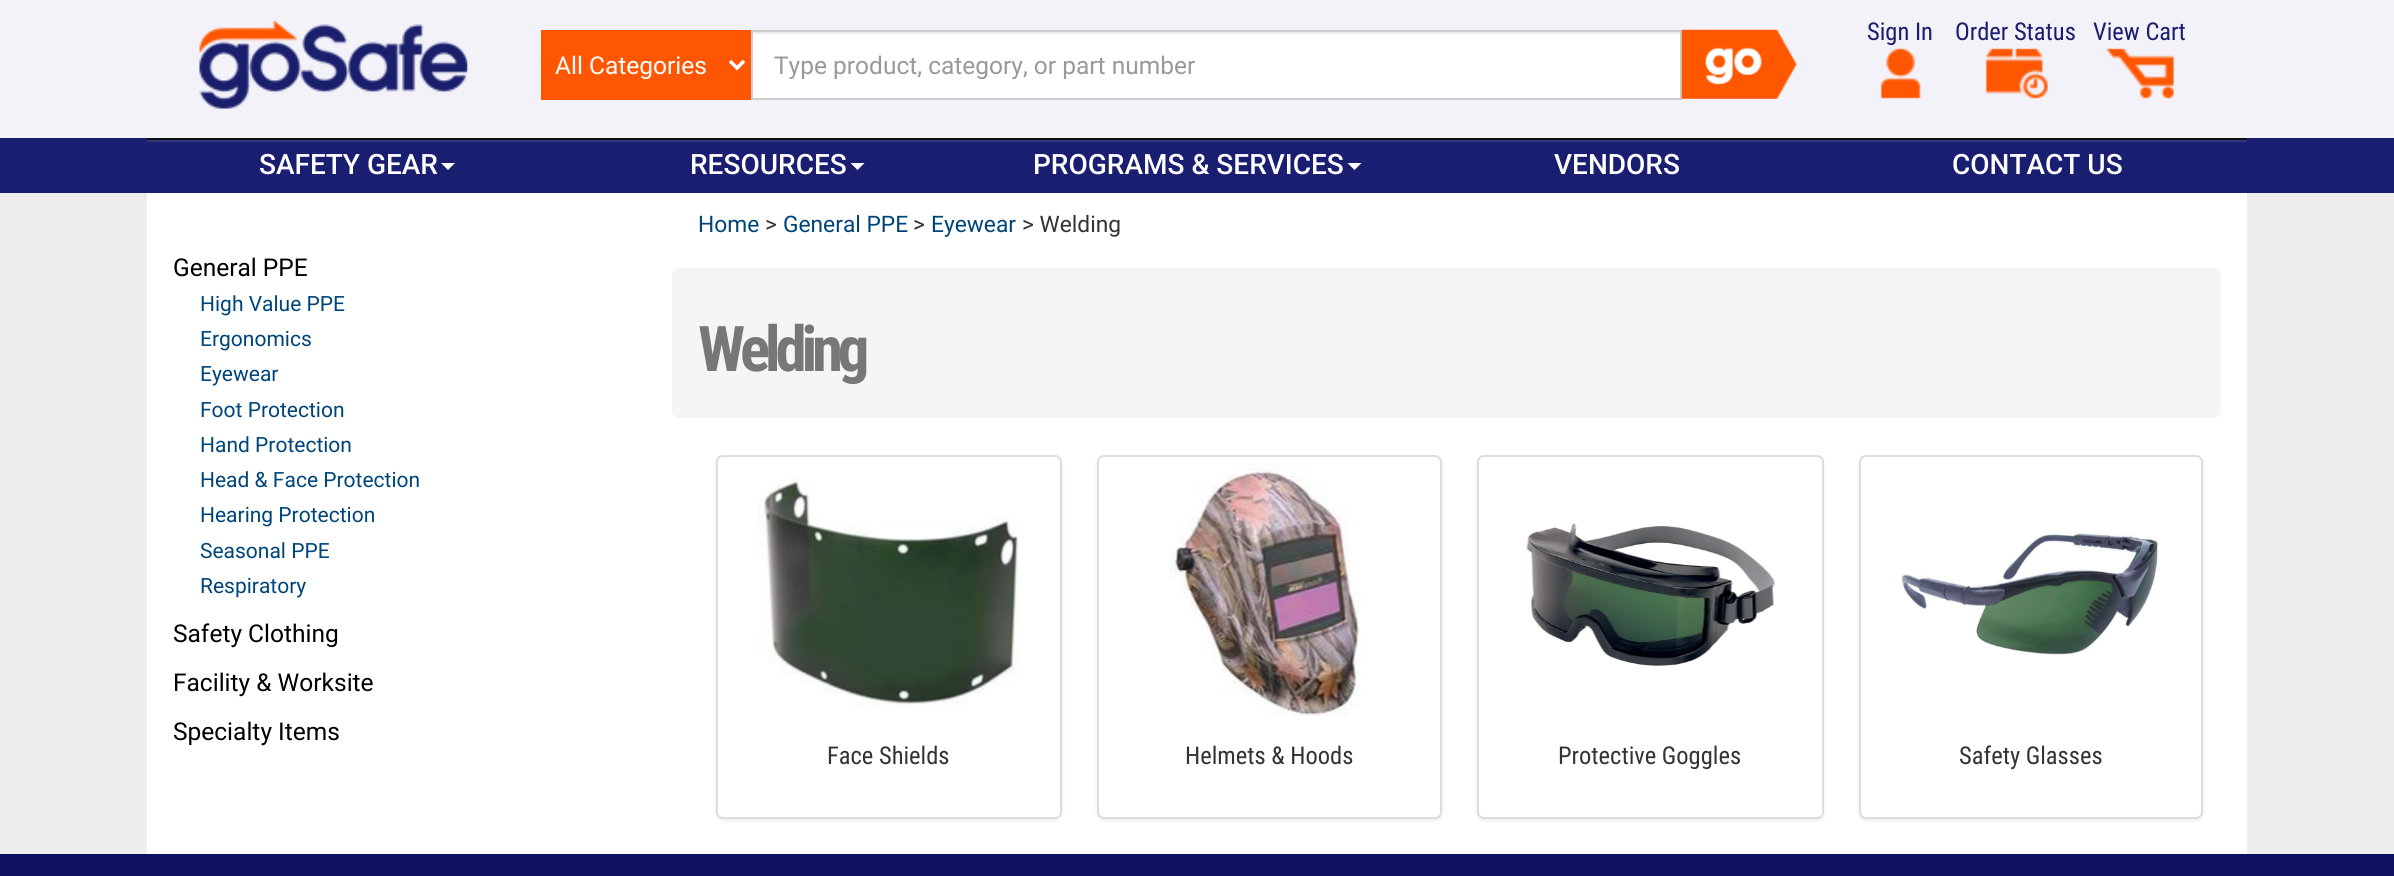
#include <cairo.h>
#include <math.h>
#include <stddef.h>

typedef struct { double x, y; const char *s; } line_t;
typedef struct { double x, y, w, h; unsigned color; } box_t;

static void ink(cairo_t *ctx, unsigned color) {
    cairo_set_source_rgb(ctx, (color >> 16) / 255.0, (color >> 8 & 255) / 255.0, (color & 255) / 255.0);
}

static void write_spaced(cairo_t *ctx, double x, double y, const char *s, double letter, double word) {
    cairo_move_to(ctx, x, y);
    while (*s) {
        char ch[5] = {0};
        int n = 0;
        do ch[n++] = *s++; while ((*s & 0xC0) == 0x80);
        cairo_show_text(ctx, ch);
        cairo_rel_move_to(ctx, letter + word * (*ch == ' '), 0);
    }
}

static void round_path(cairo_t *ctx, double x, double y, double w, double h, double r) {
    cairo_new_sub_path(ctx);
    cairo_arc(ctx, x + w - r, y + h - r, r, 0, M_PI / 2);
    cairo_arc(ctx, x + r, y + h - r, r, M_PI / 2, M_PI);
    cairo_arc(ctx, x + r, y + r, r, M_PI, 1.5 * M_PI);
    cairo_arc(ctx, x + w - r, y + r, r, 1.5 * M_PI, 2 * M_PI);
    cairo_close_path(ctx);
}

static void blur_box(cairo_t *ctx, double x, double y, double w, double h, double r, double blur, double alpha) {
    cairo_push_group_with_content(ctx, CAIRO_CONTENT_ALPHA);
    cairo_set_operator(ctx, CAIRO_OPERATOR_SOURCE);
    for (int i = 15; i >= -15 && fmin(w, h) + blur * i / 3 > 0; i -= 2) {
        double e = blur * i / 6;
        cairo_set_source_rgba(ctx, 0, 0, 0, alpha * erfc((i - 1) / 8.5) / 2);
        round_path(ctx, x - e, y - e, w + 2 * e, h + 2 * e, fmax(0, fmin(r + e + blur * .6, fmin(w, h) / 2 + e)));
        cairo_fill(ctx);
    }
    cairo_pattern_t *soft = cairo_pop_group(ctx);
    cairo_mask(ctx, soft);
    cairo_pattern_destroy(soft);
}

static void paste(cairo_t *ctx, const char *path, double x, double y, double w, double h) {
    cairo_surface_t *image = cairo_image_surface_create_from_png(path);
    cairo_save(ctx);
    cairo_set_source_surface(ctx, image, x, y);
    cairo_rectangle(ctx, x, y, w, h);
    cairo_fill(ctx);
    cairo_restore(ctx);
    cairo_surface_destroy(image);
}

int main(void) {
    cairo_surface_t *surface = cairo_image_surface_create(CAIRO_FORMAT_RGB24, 2394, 876);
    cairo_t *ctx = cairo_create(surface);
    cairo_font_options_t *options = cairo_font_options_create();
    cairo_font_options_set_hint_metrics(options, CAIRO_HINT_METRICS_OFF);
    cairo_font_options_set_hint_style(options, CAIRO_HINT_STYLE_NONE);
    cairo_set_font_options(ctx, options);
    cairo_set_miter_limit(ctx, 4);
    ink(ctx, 0xF3F2F9);
    cairo_paint(ctx);
    paste(ctx, "media/1.png", 199, 21, 269, 88);
    cairo_select_font_face(ctx, "Roboto Condensed", CAIRO_FONT_SLANT_NORMAL, CAIRO_FONT_WEIGHT_NORMAL);
    cairo_set_font_size(ctx, 24.5);
    ink(ctx, 0x1A1E70);
    cairo_move_to(ctx, 1867, 40);
    cairo_show_text(ctx, "Sign In");
    paste(ctx, "media/2.png", 1880, 48, 41, 51);
    cairo_move_to(ctx, 1955, 40);
    cairo_show_text(ctx, "Order Status");
    paste(ctx, "media/3.png", 1985, 48, 63, 51);
    cairo_move_to(ctx, 2093, 40);
    cairo_show_text(ctx, "View Cart");
    paste(ctx, "media/4.png", 2106, 48, 68, 51);
    ink(ctx, 0xFF5603);
    cairo_rectangle(ctx, 541, 30, 210, 70);
    cairo_fill(ctx);
    cairo_new_path(ctx);
    cairo_move_to(ctx, 730, 61);
    cairo_line_to(ctx, 737, 68);
    cairo_line_to(ctx, 744, 61);
    ink(ctx, 0xFFFFFF);
    cairo_set_line_width(ctx, 3.5);
    cairo_stroke(ctx);
    cairo_select_font_face(ctx, "Roboto", CAIRO_FONT_SLANT_NORMAL, CAIRO_FONT_WEIGHT_NORMAL);
    cairo_move_to(ctx, 555, 74);
    cairo_show_text(ctx, "All Categories");
    cairo_rectangle(ctx, 753, 34, 927, 64);
    cairo_fill(ctx);
    ink(ctx, 0xECECEC);
    cairo_rectangle(ctx, 753, 32, 927, 2);
    cairo_fill(ctx);
    cairo_rectangle(ctx, 752, 31, 929, 68);
    ink(ctx, 0xCCCCCC);
    cairo_set_line_width(ctx, 2);
    cairo_stroke(ctx);
    cairo_save(ctx);
    cairo_rectangle(ctx, 774, 51, 885, 28);
    cairo_clip(ctx);
    ink(ctx, 0x999999);
    cairo_move_to(ctx, 774, 74);
    cairo_show_text(ctx, "Type product, category, or part number");
    cairo_restore(ctx);
    paste(ctx, "media/5.png", 1681, 29, 116, 71);
    {
        static const box_t items[] = {
            {0, 138, 2394, 55, 0x1A1E70},
            {147, 140, 2100, 2, 0x31357E},
            {147, 138, 2100, 2, 0x101010},
        };
        for (size_t i = 0; i < sizeof items / sizeof *items; i++) {
            ink(ctx, items[i].color);
            cairo_rectangle(ctx, items[i].x, items[i].y, items[i].w, items[i].h);
            cairo_fill(ctx);
        }
    }
    cairo_select_font_face(ctx, "Roboto Medium", CAIRO_FONT_SLANT_NORMAL, CAIRO_FONT_WEIGHT_NORMAL);
    cairo_set_font_size(ctx, 28);
    ink(ctx, 0xFFFFFF);
    cairo_move_to(ctx, 259, 174);
    cairo_show_text(ctx, "SAFETY GEAR");
    cairo_new_path(ctx);
    cairo_move_to(ctx, 441, 163);
    cairo_line_to(ctx, 455, 163);
    cairo_line_to(ctx, 448, 170);
    cairo_close_path(ctx);
    cairo_fill(ctx);
    cairo_move_to(ctx, 690, 174);
    cairo_show_text(ctx, "RESOURCES");
    cairo_new_path(ctx);
    cairo_move_to(ctx, 850.5, 163);
    cairo_line_to(ctx, 864.5, 163);
    cairo_line_to(ctx, 857.5, 170);
    cairo_close_path(ctx);
    cairo_fill(ctx);
    cairo_move_to(ctx, 1033, 174);
    cairo_show_text(ctx, "PROGRAMS & SERVICES");
    cairo_new_path(ctx);
    cairo_move_to(ctx, 1347.5, 163);
    cairo_line_to(ctx, 1361.5, 163);
    cairo_line_to(ctx, 1354.5, 170);
    cairo_close_path(ctx);
    cairo_fill(ctx);
    cairo_move_to(ctx, 1554, 174);
    cairo_show_text(ctx, "VENDORS");
    cairo_move_to(ctx, 1952, 174);
    cairo_show_text(ctx, "CONTACT US");
    ink(ctx, 0xEEEEEE);
    cairo_rectangle(ctx, 0, 193, 2394, 661);
    cairo_fill(ctx);
    ink(ctx, 0xFFFFFF);
    cairo_rectangle(ctx, 147, 193, 2100, 661);
    cairo_fill(ctx);
    cairo_select_font_face(ctx, "Roboto", CAIRO_FONT_SLANT_NORMAL, CAIRO_FONT_WEIGHT_NORMAL);
    cairo_set_font_size(ctx, 24.5);
    ink(ctx, 0x000000);
    cairo_move_to(ctx, 173, 276);
    cairo_show_text(ctx, "General PPE");
    cairo_set_font_size(ctx, 21);
    ink(ctx, 0x00457A);
    {
        static const line_t items[] = {
            {200, 311, "High Value PPE"},
            {200, 346, "Ergonomics"},
            {200, 381, "Eyewear"},
            {200, 417, "Foot Protection"},
            {200, 452, "Hand Protection"},
            {200, 487, "Head & Face Protection"},
            {200, 522, "Hearing Protection"},
            {200, 558, "Seasonal PPE"},
            {200, 593, "Respiratory"},
        };
        for (size_t i = 0; i < sizeof items / sizeof *items; i++) {
            cairo_move_to(ctx, items[i].x, items[i].y);
            cairo_show_text(ctx, items[i].s);
        }
    }
    cairo_set_font_size(ctx, 24.5);
    ink(ctx, 0x000000);
    {
        static const line_t items[] = {
            {173, 642, "Safety Clothing"},
            {173, 691, "Facility & Worksite"},
            {173, 740, "Specialty Items"},
        };
        for (size_t i = 0; i < sizeof items / sizeof *items; i++) {
            cairo_move_to(ctx, items[i].x, items[i].y);
            cairo_show_text(ctx, items[i].s);
        }
    }
    cairo_set_font_size(ctx, 22.75);
    ink(ctx, 0x00457A);
    cairo_move_to(ctx, 698, 232);
    cairo_show_text(ctx, "Home");
    ink(ctx, 0x333333);
    cairo_move_to(ctx, 765, 232);
    cairo_show_text(ctx, ">");
    ink(ctx, 0x00457A);
    cairo_move_to(ctx, 783, 232);
    cairo_show_text(ctx, "General PPE");
    ink(ctx, 0x333333);
    cairo_move_to(ctx, 913, 232);
    cairo_show_text(ctx, ">");
    ink(ctx, 0x00457A);
    cairo_move_to(ctx, 931, 232);
    cairo_show_text(ctx, "Eyewear");
    ink(ctx, 0x333333);
    cairo_move_to(ctx, 1022, 232);
    cairo_show_text(ctx, "> Welding");
    ink(ctx, 0xF5F5F5);
    round_path(ctx, 672, 268, 1549, 150, 7);
    cairo_fill(ctx);
    cairo_select_font_face(ctx, "Roboto Condensed", CAIRO_FONT_SLANT_NORMAL, CAIRO_FONT_WEIGHT_BOLD);
    cairo_set_font_size(ctx, 63);
    ink(ctx, 0x777777);
    write_spaced(ctx, 698, 371, "Welding", -5.25, 0);
    ink(ctx, 0x000000);
    blur_box(ctx, 716, 457, 346, 364, 7, 2, 0.07);
    ink(ctx, 0xFFFFFF);
    round_path(ctx, 717, 456, 344, 362, 6);
    cairo_fill_preserve(ctx);
    ink(ctx, 0xDDDDDD);
    cairo_stroke(ctx);
    paste(ctx, "media/6.png", 758, 477, 262, 229);
    cairo_select_font_face(ctx, "Roboto Condensed", CAIRO_FONT_SLANT_NORMAL, CAIRO_FONT_WEIGHT_NORMAL);
    cairo_set_font_size(ctx, 24.5);
    ink(ctx, 0x333333);
    cairo_move_to(ctx, 827, 764);
    cairo_show_text(ctx, "Face Shields");
    ink(ctx, 0x000000);
    blur_box(ctx, 1097, 457, 345, 364, 7, 2, 0.07);
    ink(ctx, 0xFFFFFF);
    round_path(ctx, 1098, 456, 343, 362, 6);
    cairo_fill_preserve(ctx);
    ink(ctx, 0xDDDDDD);
    cairo_stroke(ctx);
    paste(ctx, "media/7.png", 1169, 464, 195, 252);
    ink(ctx, 0x333333);
    cairo_move_to(ctx, 1185, 764);
    cairo_show_text(ctx, "Helmets & Hoods");
    ink(ctx, 0x000000);
    blur_box(ctx, 1477, 457, 347, 364, 7, 2, 0.07);
    ink(ctx, 0xFFFFFF);
    round_path(ctx, 1478, 456, 345, 362, 6);
    cairo_fill_preserve(ctx);
    ink(ctx, 0xDDDDDD);
    cairo_stroke(ctx);
    paste(ctx, "media/8.png", 1526, 523, 249, 143);
    ink(ctx, 0x333333);
    cairo_move_to(ctx, 1558, 764);
    cairo_show_text(ctx, "Protective Goggles");
    ink(ctx, 0x000000);
    blur_box(ctx, 1859, 457, 344, 364, 7, 2, 0.07);
    ink(ctx, 0xFFFFFF);
    round_path(ctx, 1860, 456, 342, 362, 6);
    cairo_fill_preserve(ctx);
    ink(ctx, 0xDDDDDD);
    cairo_stroke(ctx);
    paste(ctx, "media/9.png", 1901, 532, 257, 123);
    ink(ctx, 0x333333);
    cairo_move_to(ctx, 1959, 764);
    cairo_show_text(ctx, "Safety Glasses");
    ink(ctx, 0x10115E);
    cairo_rectangle(ctx, 0, 854, 2394, 22);
    cairo_fill(ctx);
    cairo_surface_write_to_png(surface, "image.png");
    cairo_font_options_destroy(options);
    cairo_destroy(ctx);
    cairo_surface_destroy(surface);
    return 0;
}
